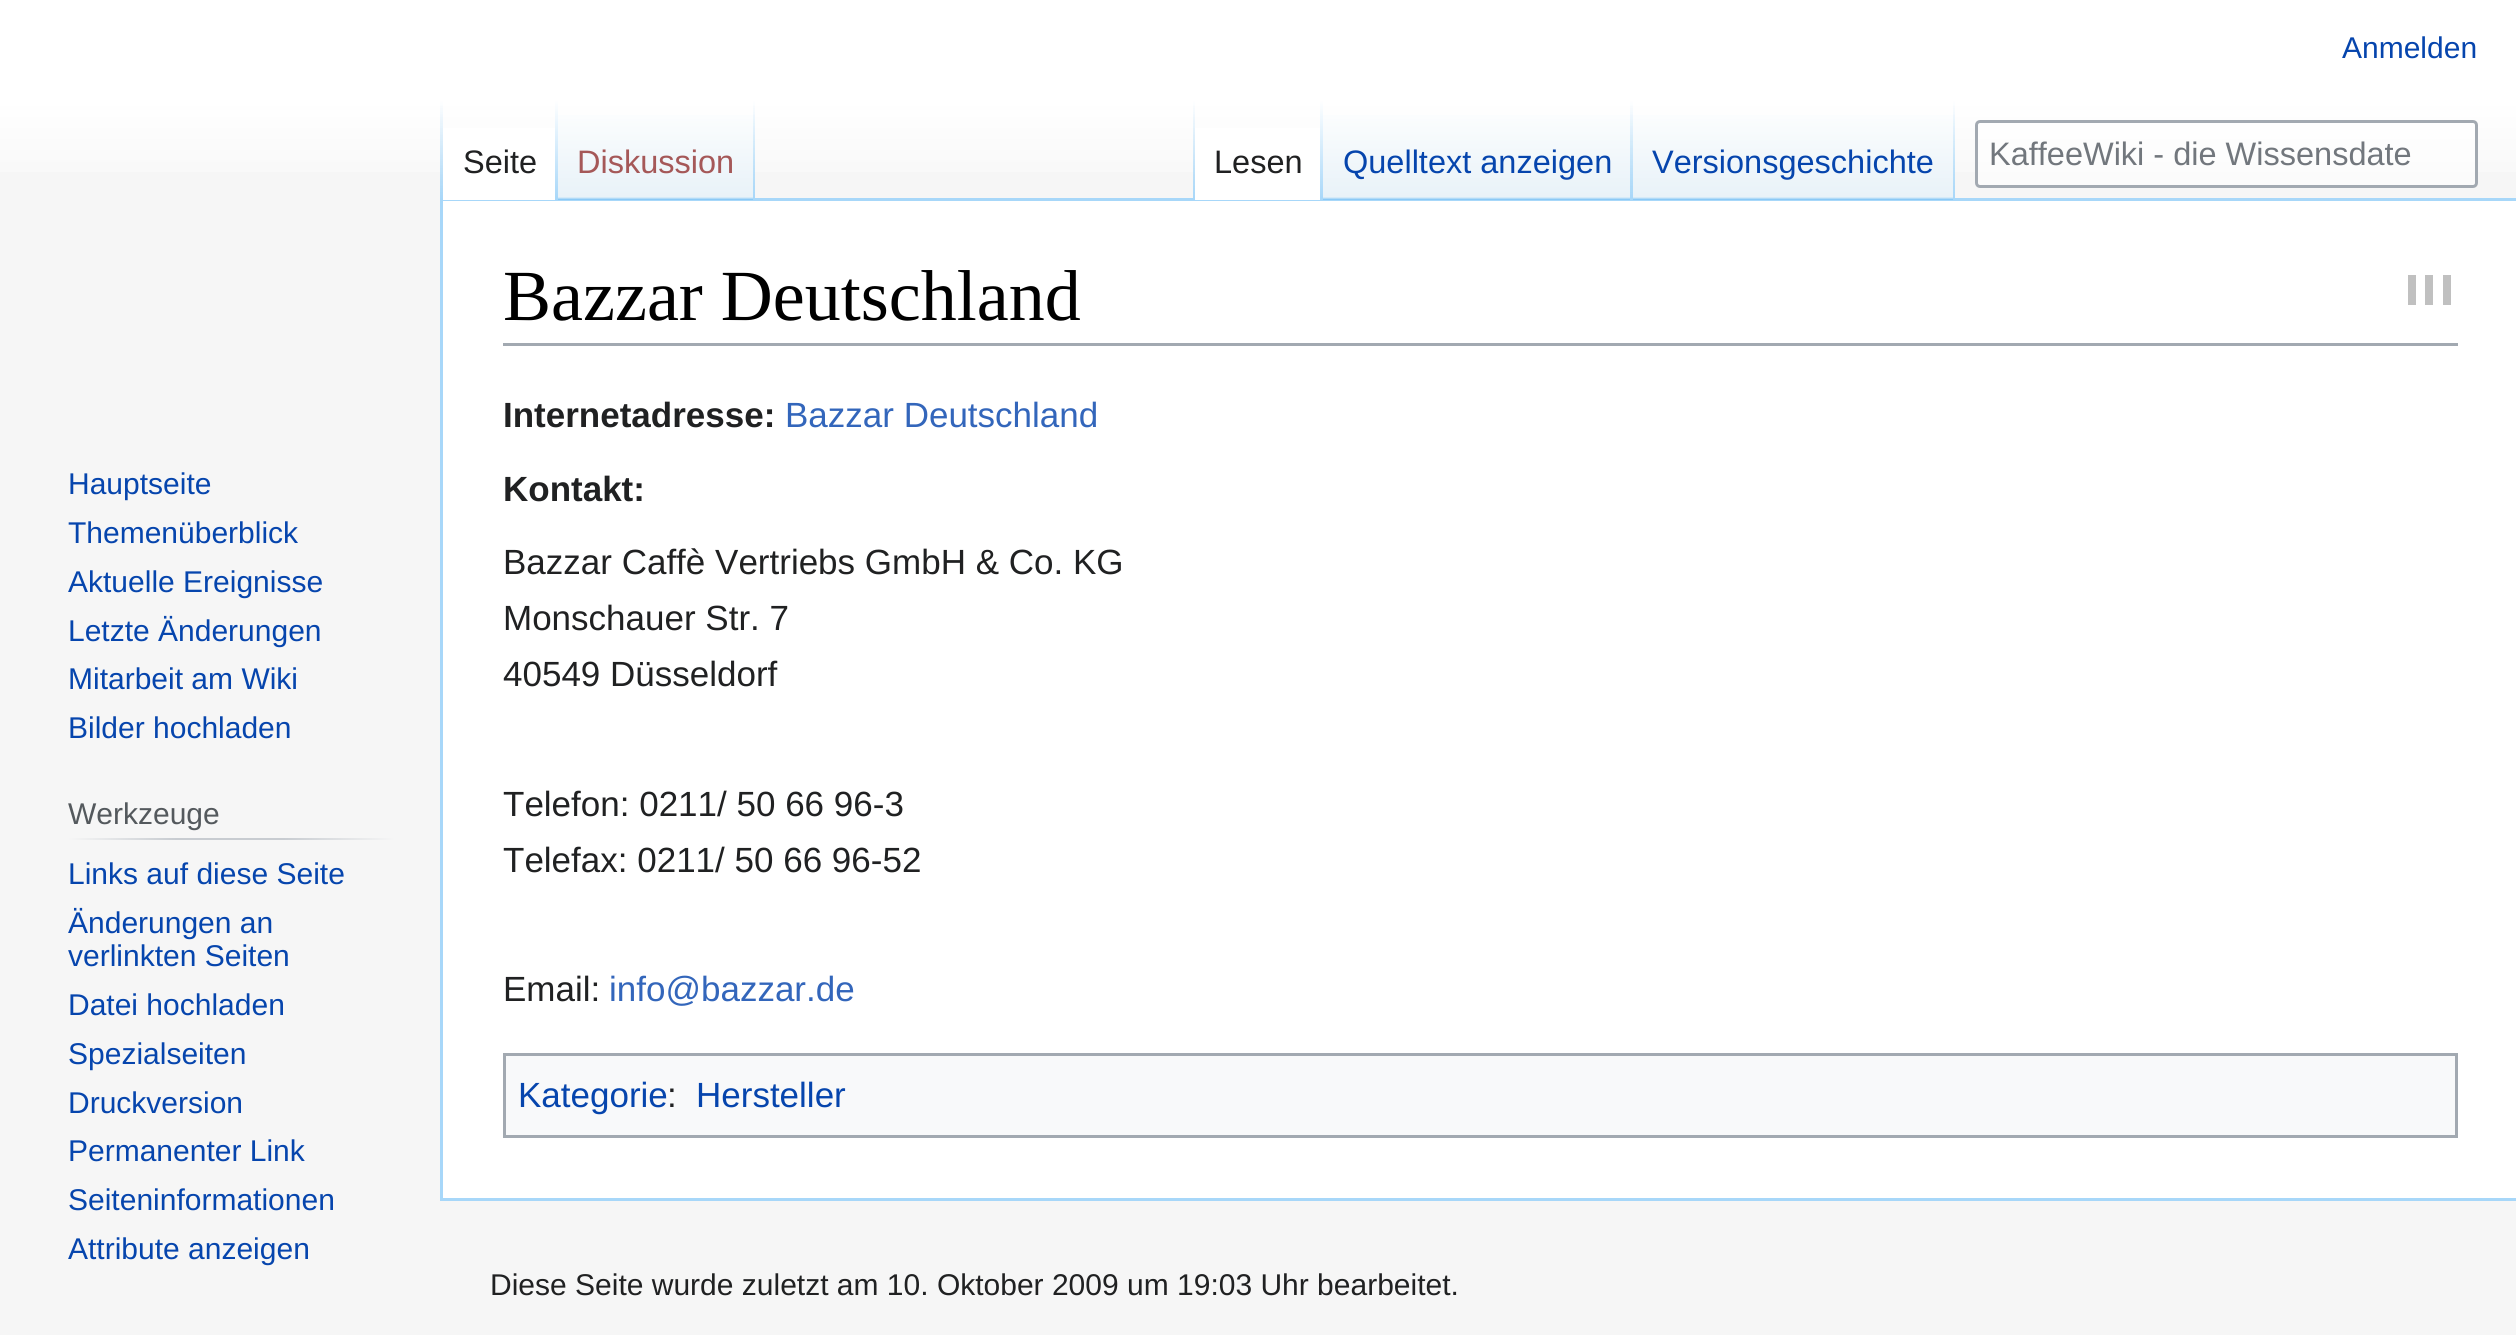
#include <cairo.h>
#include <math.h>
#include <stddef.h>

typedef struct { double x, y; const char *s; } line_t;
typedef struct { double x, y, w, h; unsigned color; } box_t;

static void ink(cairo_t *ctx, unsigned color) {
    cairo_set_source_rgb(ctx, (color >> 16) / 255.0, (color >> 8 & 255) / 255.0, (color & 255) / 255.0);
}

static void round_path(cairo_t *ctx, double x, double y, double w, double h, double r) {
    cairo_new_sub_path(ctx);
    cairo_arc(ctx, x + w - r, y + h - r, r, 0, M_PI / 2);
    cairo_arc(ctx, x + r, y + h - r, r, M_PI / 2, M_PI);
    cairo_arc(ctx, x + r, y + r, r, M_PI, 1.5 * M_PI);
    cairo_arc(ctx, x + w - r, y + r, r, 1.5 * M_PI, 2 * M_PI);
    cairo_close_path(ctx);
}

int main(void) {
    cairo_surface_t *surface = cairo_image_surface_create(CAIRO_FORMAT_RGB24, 2516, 1335);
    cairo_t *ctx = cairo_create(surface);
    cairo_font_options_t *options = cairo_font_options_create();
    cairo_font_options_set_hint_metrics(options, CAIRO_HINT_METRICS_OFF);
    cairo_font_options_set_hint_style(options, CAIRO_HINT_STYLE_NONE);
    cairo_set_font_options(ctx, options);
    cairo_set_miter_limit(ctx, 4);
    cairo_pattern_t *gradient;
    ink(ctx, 0xF6F6F6);
    cairo_paint(ctx);
    gradient = cairo_pattern_create_linear(1259, 0, 1259, 200);
    cairo_pattern_add_color_stop_rgba(gradient, 0.5, 1, 1, 1, 1);
    cairo_pattern_add_color_stop_rgba(gradient, 1, 0.965, 0.965, 0.965, 1);
    cairo_set_source(ctx, gradient);
    cairo_pattern_destroy(gradient);
    cairo_rectangle(ctx, 0, 0, 2516, 172);
    cairo_fill(ctx);
    cairo_select_font_face(ctx, "Liberation Sans", CAIRO_FONT_SLANT_NORMAL, CAIRO_FONT_WEIGHT_NORMAL);
    cairo_set_font_size(ctx, 30);
    ink(ctx, 0x0645AD);
    cairo_move_to(ctx, 2342, 58);
    cairo_show_text(ctx, "Anmelden");
    {
        static const box_t items[] = {
            {440, 198, 2076, 3, 0xA7D7F9},
            {440, 1198, 2076, 3, 0xA7D7F9},
            {440, 198, 3, 1002, 0xA7D7F9},
        };
        for (size_t i = 0; i < sizeof items / sizeof *items; i++) {
            ink(ctx, items[i].color);
            cairo_rectangle(ctx, items[i].x, items[i].y, items[i].w, items[i].h);
            cairo_fill(ctx);
        }
    }
    gradient = cairo_pattern_create_linear(441, 100, 441, 200);
    cairo_pattern_add_color_stop_rgba(gradient, 0, 0.655, 0.843, 0.976, 0);
    cairo_pattern_add_color_stop_rgba(gradient, 1, 0.655, 0.843, 0.976, 1);
    cairo_set_source(ctx, gradient);
    cairo_pattern_destroy(gradient);
    cairo_rectangle(ctx, 440, 100, 3, 100);
    cairo_fill(ctx);
    ink(ctx, 0xFFFFFF);
    cairo_rectangle(ctx, 443, 128, 112, 72);
    cairo_fill(ctx);
    gradient = cairo_pattern_create_linear(556, 100, 556, 200);
    cairo_pattern_add_color_stop_rgba(gradient, 0, 1, 1, 1, 1);
    cairo_pattern_add_color_stop_rgba(gradient, 1, 0.655, 0.843, 0.976, 1);
    cairo_set_source(ctx, gradient);
    cairo_pattern_destroy(gradient);
    cairo_rectangle(ctx, 555, 100, 3, 100);
    cairo_fill(ctx);
    cairo_set_font_size(ctx, 32.5);
    ink(ctx, 0x202122);
    cairo_move_to(ctx, 463, 173);
    cairo_show_text(ctx, "Seite");
    gradient = cairo_pattern_create_linear(656, 200, 656, 100);
    cairo_pattern_add_color_stop_rgba(gradient, 0, 0.467, 0.757, 0.965, 1);
    cairo_pattern_add_color_stop_rgba(gradient, 0.03, 0.91, 0.949, 0.973, 1);
    cairo_pattern_add_color_stop_rgba(gradient, 1, 1, 1, 1, 1);
    cairo_set_source(ctx, gradient);
    cairo_pattern_destroy(gradient);
    cairo_rectangle(ctx, 558, 115, 197, 85);
    cairo_fill(ctx);
    gradient = cairo_pattern_create_linear(754, 100, 754, 200);
    cairo_pattern_add_color_stop_rgba(gradient, 0, 0.655, 0.843, 0.976, 0);
    cairo_pattern_add_color_stop_rgba(gradient, 1, 0.655, 0.843, 0.976, 1);
    cairo_set_source(ctx, gradient);
    cairo_pattern_destroy(gradient);
    cairo_rectangle(ctx, 753, 100, 2, 100);
    cairo_fill(ctx);
    ink(ctx, 0xA55858);
    cairo_move_to(ctx, 577, 173);
    cairo_show_text(ctx, "Diskussion");
    gradient = cairo_pattern_create_linear(1194, 100, 1194, 200);
    cairo_pattern_add_color_stop_rgba(gradient, 0, 0.655, 0.843, 0.976, 0);
    cairo_pattern_add_color_stop_rgba(gradient, 1, 0.655, 0.843, 0.976, 1);
    cairo_set_source(ctx, gradient);
    cairo_pattern_destroy(gradient);
    cairo_rectangle(ctx, 1193, 100, 2, 100);
    cairo_fill(ctx);
    ink(ctx, 0xFFFFFF);
    cairo_rectangle(ctx, 1195, 128, 125, 72);
    cairo_fill(ctx);
    gradient = cairo_pattern_create_linear(1321, 100, 1321, 200);
    cairo_pattern_add_color_stop_rgba(gradient, 0, 1, 1, 1, 1);
    cairo_pattern_add_color_stop_rgba(gradient, 1, 0.655, 0.843, 0.976, 1);
    cairo_set_source(ctx, gradient);
    cairo_pattern_destroy(gradient);
    cairo_rectangle(ctx, 1320, 100, 3, 100);
    cairo_fill(ctx);
    ink(ctx, 0x202122);
    cairo_move_to(ctx, 1214, 173);
    cairo_show_text(ctx, "Lesen");
    gradient = cairo_pattern_create_linear(1478, 200, 1478, 100);
    cairo_pattern_add_color_stop_rgba(gradient, 0, 0.467, 0.757, 0.965, 1);
    cairo_pattern_add_color_stop_rgba(gradient, 0.03, 0.91, 0.949, 0.973, 1);
    cairo_pattern_add_color_stop_rgba(gradient, 1, 1, 1, 1, 1);
    cairo_set_source(ctx, gradient);
    cairo_pattern_destroy(gradient);
    cairo_rectangle(ctx, 1323, 115, 310, 85);
    cairo_fill(ctx);
    gradient = cairo_pattern_create_linear(1631, 100, 1631, 200);
    cairo_pattern_add_color_stop_rgba(gradient, 0, 0.655, 0.843, 0.976, 0);
    cairo_pattern_add_color_stop_rgba(gradient, 1, 0.655, 0.843, 0.976, 1);
    cairo_set_source(ctx, gradient);
    cairo_pattern_destroy(gradient);
    cairo_rectangle(ctx, 1630, 100, 3, 100);
    cairo_fill(ctx);
    ink(ctx, 0x0645AD);
    cairo_move_to(ctx, 1343, 173);
    cairo_show_text(ctx, "Quelltext anzeigen");
    gradient = cairo_pattern_create_linear(1794, 200, 1794, 100);
    cairo_pattern_add_color_stop_rgba(gradient, 0, 0.467, 0.757, 0.965, 1);
    cairo_pattern_add_color_stop_rgba(gradient, 0.03, 0.91, 0.949, 0.973, 1);
    cairo_pattern_add_color_stop_rgba(gradient, 1, 1, 1, 1, 1);
    cairo_set_source(ctx, gradient);
    cairo_pattern_destroy(gradient);
    cairo_rectangle(ctx, 1633, 115, 322, 85);
    cairo_fill(ctx);
    gradient = cairo_pattern_create_linear(1954, 100, 1954, 200);
    cairo_pattern_add_color_stop_rgba(gradient, 0, 0.655, 0.843, 0.976, 0);
    cairo_pattern_add_color_stop_rgba(gradient, 1, 0.655, 0.843, 0.976, 1);
    cairo_set_source(ctx, gradient);
    cairo_pattern_destroy(gradient);
    cairo_rectangle(ctx, 1953, 100, 2, 100);
    cairo_fill(ctx);
    ink(ctx, 0x0645AD);
    cairo_move_to(ctx, 1652, 173);
    cairo_show_text(ctx, "Versionsgeschichte");
    cairo_set_source_rgba(ctx, 1, 1, 1, 0.5);
    round_path(ctx, 1976.5, 121.5, 500, 65, 3.5);
    cairo_fill_preserve(ctx);
    ink(ctx, 0xA2A9B1);
    cairo_set_line_width(ctx, 3);
    cairo_stroke(ctx);
    ink(ctx, 0x72777D);
    cairo_move_to(ctx, 1989, 165);
    cairo_show_text(ctx, "KaffeeWiki - die Wissensdate");
    cairo_set_font_size(ctx, 30);
    ink(ctx, 0x0645AD);
    {
        static const line_t items[] = {
            {68, 494, "Hauptseite"},
            {68, 543, "Themenüberblick"},
            {68, 592, "Aktuelle Ereignisse"},
            {68, 641, "Letzte Änderungen"},
            {68, 689, "Mitarbeit am Wiki"},
            {68, 738, "Bilder hochladen"},
        };
        for (size_t i = 0; i < sizeof items / sizeof *items; i++) {
            cairo_move_to(ctx, items[i].x, items[i].y);
            cairo_show_text(ctx, items[i].s);
        }
    }
    gradient = cairo_pattern_create_linear(68, 839, 395, 839);
    cairo_pattern_add_color_stop_rgba(gradient, 0, 0.965, 0.965, 0.965, 1);
    cairo_pattern_add_color_stop_rgba(gradient, 0.33, 0.784, 0.8, 0.82, 1);
    cairo_pattern_add_color_stop_rgba(gradient, 0.66, 0.784, 0.8, 0.82, 1);
    cairo_pattern_add_color_stop_rgba(gradient, 1, 0.965, 0.965, 0.965, 1);
    cairo_set_source(ctx, gradient);
    cairo_pattern_destroy(gradient);
    cairo_rectangle(ctx, 68, 838, 327, 2);
    cairo_fill(ctx);
    ink(ctx, 0x54595D);
    cairo_move_to(ctx, 68, 824);
    cairo_show_text(ctx, "Werkzeuge");
    ink(ctx, 0x0645AD);
    {
        static const line_t items[] = {
            {68, 884, "Links auf diese Seite"},
            {68, 933, "Änderungen an"},
            {68, 966, "verlinkten Seiten"},
            {68, 1015, "Datei hochladen"},
            {68, 1064, "Spezialseiten"},
            {68, 1113, "Druckversion"},
            {68, 1161, "Permanenter Link"},
            {68, 1210, "Seiteninformationen"},
            {68, 1259, "Attribute anzeigen"},
        };
        for (size_t i = 0; i < sizeof items / sizeof *items; i++) {
            cairo_move_to(ctx, items[i].x, items[i].y);
            cairo_show_text(ctx, items[i].s);
        }
    }
    ink(ctx, 0xFFFFFF);
    cairo_rectangle(ctx, 443, 201, 2073, 997);
    cairo_fill(ctx);
    ink(ctx, 0xA2A9B1);
    cairo_rectangle(ctx, 503, 343, 1955, 3);
    cairo_fill(ctx);
    cairo_select_font_face(ctx, "Liberation Serif", CAIRO_FONT_SLANT_NORMAL, CAIRO_FONT_WEIGHT_NORMAL);
    cairo_set_font_size(ctx, 72);
    ink(ctx, 0x000000);
    cairo_move_to(ctx, 503, 320);
    cairo_show_text(ctx, "Bazzar Deutschland");
    {
        static const box_t items[] = {
            {2425, 275, 8, 30, 0xC0C0C0},
            {2408, 275, 8, 30, 0xC0C0C0},
            {2443, 275, 8, 30, 0xC0C0C0},
        };
        for (size_t i = 0; i < sizeof items / sizeof *items; i++) {
            ink(ctx, items[i].color);
            cairo_rectangle(ctx, items[i].x, items[i].y, items[i].w, items[i].h);
            cairo_fill(ctx);
        }
    }
    cairo_select_font_face(ctx, "Liberation Sans", CAIRO_FONT_SLANT_NORMAL, CAIRO_FONT_WEIGHT_BOLD);
    cairo_set_font_size(ctx, 35);
    ink(ctx, 0x202122);
    cairo_move_to(ctx, 503, 427);
    cairo_show_text(ctx, "Internetadresse:");
    cairo_select_font_face(ctx, "Liberation Sans", CAIRO_FONT_SLANT_NORMAL, CAIRO_FONT_WEIGHT_NORMAL);
    ink(ctx, 0x3366BB);
    cairo_move_to(ctx, 785, 427);
    cairo_show_text(ctx, "Bazzar Deutschland");
    cairo_select_font_face(ctx, "Liberation Sans", CAIRO_FONT_SLANT_NORMAL, CAIRO_FONT_WEIGHT_BOLD);
    ink(ctx, 0x202122);
    cairo_move_to(ctx, 503, 501);
    cairo_show_text(ctx, "Kontakt:");
    cairo_select_font_face(ctx, "Liberation Sans", CAIRO_FONT_SLANT_NORMAL, CAIRO_FONT_WEIGHT_NORMAL);
    {
        static const line_t items[] = {
            {503, 574, "Bazzar Caffè Vertriebs GmbH & Co. KG"},
            {503, 630, "Monschauer Str. 7"},
            {503, 686, "40549 Düsseldorf"},
            {503, 816, "Telefon: 0211/ 50 66 96-3"},
            {503, 872, "Telefax: 0211/ 50 66 96-52"},
            {503, 1001, "Email:"},
        };
        for (size_t i = 0; i < sizeof items / sizeof *items; i++) {
            cairo_move_to(ctx, items[i].x, items[i].y);
            cairo_show_text(ctx, items[i].s);
        }
    }
    ink(ctx, 0x3366BB);
    cairo_move_to(ctx, 609, 1001);
    cairo_show_text(ctx, "info@bazzar.de");
    ink(ctx, 0xF8F9FA);
    cairo_rectangle(ctx, 504.5, 1054.5, 1952, 82);
    cairo_fill_preserve(ctx);
    ink(ctx, 0xA2A9B1);
    cairo_stroke(ctx);
    ink(ctx, 0x0645AD);
    cairo_move_to(ctx, 518, 1107);
    cairo_show_text(ctx, "Kategorie");
    ink(ctx, 0x202122);
    cairo_move_to(ctx, 667, 1107);
    cairo_show_text(ctx, ":");
    ink(ctx, 0x0645AD);
    cairo_move_to(ctx, 696, 1107);
    cairo_show_text(ctx, "Hersteller");
    cairo_set_font_size(ctx, 30);
    ink(ctx, 0x202122);
    cairo_move_to(ctx, 490, 1295);
    cairo_show_text(ctx, "Diese Seite wurde zuletzt am 10. Oktober 2009 um 19:03 Uhr bearbeitet.");
    cairo_surface_write_to_png(surface, "image.png");
    cairo_font_options_destroy(options);
    cairo_destroy(ctx);
    cairo_surface_destroy(surface);
    return 0;
}
